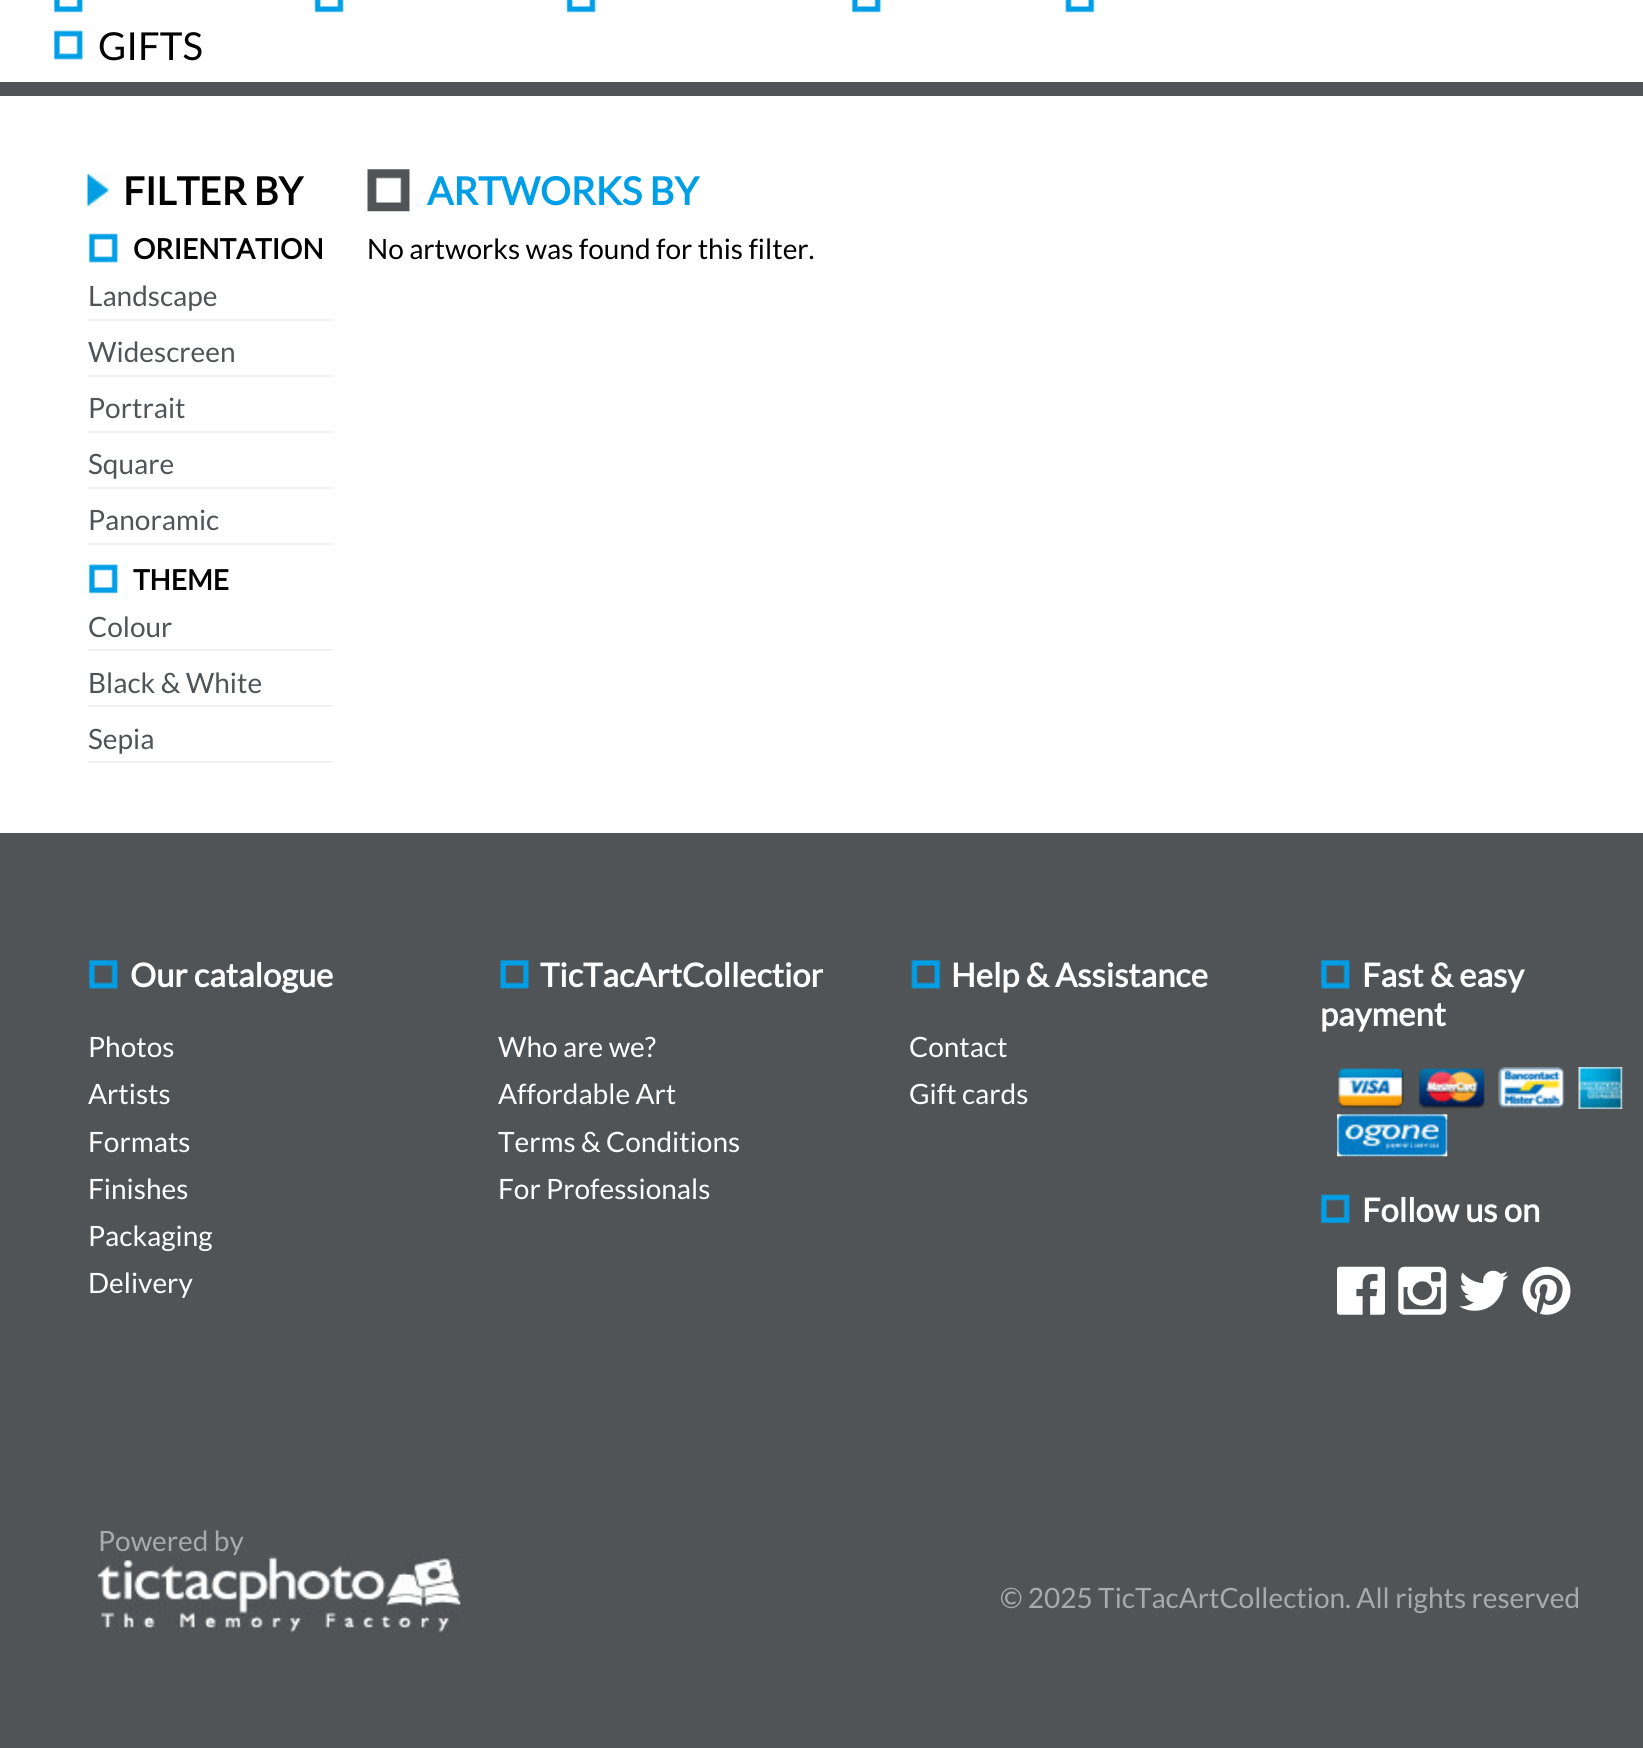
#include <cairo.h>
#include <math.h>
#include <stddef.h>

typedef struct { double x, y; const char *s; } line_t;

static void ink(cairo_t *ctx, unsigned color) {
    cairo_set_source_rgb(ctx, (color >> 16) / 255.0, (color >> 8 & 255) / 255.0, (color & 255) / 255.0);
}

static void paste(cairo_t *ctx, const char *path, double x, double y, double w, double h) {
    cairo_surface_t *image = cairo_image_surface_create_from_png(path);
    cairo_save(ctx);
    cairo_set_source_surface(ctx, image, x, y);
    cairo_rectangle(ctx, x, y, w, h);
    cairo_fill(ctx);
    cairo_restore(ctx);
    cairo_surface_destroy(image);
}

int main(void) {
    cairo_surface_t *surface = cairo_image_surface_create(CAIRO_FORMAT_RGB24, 1643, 1748);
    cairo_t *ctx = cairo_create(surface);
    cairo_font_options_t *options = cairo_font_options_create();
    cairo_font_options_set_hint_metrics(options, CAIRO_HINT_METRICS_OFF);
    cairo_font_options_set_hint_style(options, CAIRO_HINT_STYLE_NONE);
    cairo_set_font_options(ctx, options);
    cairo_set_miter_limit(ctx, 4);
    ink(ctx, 0xFFFFFF);
    cairo_paint(ctx);
    paste(ctx, "media/1.png", 53, 0, 30, 13);
    paste(ctx, "media/2.png", 314, 0, 30, 13);
    paste(ctx, "media/2.png", 566, 0, 30, 13);
    paste(ctx, "media/3.png", 851, 0, 30, 13);
    paste(ctx, "media/4.png", 1065, 0, 30, 13);
    paste(ctx, "media/5.png", 53, 30, 30, 30);
    cairo_select_font_face(ctx, "Lato", CAIRO_FONT_SLANT_NORMAL, CAIRO_FONT_WEIGHT_NORMAL);
    cairo_set_font_size(ctx, 38.5);
    ink(ctx, 0x000000);
    cairo_move_to(ctx, 98, 60);
    cairo_show_text(ctx, "GIFTS");
    ink(ctx, 0x505457);
    cairo_rectangle(ctx, 0, 82, 1643, 14);
    cairo_fill(ctx);
    paste(ctx, "media/6.png", 87, 173, 22, 33);
    cairo_select_font_face(ctx, "Lato", CAIRO_FONT_SLANT_NORMAL, CAIRO_FONT_WEIGHT_BOLD);
    ink(ctx, 0x000000);
    cairo_move_to(ctx, 123, 205);
    cairo_show_text(ctx, "FILTER BY");
    paste(ctx, "media/5.png", 88, 233, 30, 30);
    cairo_set_font_size(ctx, 28);
    cairo_move_to(ctx, 133, 259);
    cairo_show_text(ctx, "ORIENTATION");
    ink(ctx, 0xF1F1F1);
    cairo_rectangle(ctx, 88, 319, 245, 2);
    cairo_fill(ctx);
    cairo_select_font_face(ctx, "Lato", CAIRO_FONT_SLANT_NORMAL, CAIRO_FONT_WEIGHT_NORMAL);
    ink(ctx, 0x505457);
    cairo_move_to(ctx, 88, 306);
    cairo_show_text(ctx, "Landscape");
    ink(ctx, 0xF1F1F1);
    cairo_rectangle(ctx, 88, 375, 245, 2);
    cairo_fill(ctx);
    ink(ctx, 0x505457);
    cairo_move_to(ctx, 88, 362);
    cairo_show_text(ctx, "Widescreen");
    ink(ctx, 0xF1F1F1);
    cairo_rectangle(ctx, 88, 431, 245, 2);
    cairo_fill(ctx);
    ink(ctx, 0x505457);
    cairo_move_to(ctx, 88, 418);
    cairo_show_text(ctx, "Portrait");
    ink(ctx, 0xF1F1F1);
    cairo_rectangle(ctx, 88, 487, 245, 2);
    cairo_fill(ctx);
    ink(ctx, 0x505457);
    cairo_move_to(ctx, 88, 474);
    cairo_show_text(ctx, "Square");
    ink(ctx, 0xF1F1F1);
    cairo_rectangle(ctx, 88, 543, 245, 2);
    cairo_fill(ctx);
    ink(ctx, 0x505457);
    cairo_move_to(ctx, 88, 530);
    cairo_show_text(ctx, "Panoramic");
    paste(ctx, "media/7.png", 88, 564, 30, 30);
    cairo_select_font_face(ctx, "Lato", CAIRO_FONT_SLANT_NORMAL, CAIRO_FONT_WEIGHT_BOLD);
    ink(ctx, 0x000000);
    cairo_move_to(ctx, 133, 590);
    cairo_show_text(ctx, "THEME");
    ink(ctx, 0xF1F1F1);
    cairo_rectangle(ctx, 88, 649, 245, 2);
    cairo_fill(ctx);
    cairo_select_font_face(ctx, "Lato", CAIRO_FONT_SLANT_NORMAL, CAIRO_FONT_WEIGHT_NORMAL);
    ink(ctx, 0x505457);
    cairo_move_to(ctx, 88, 637);
    cairo_show_text(ctx, "Colour");
    ink(ctx, 0xF1F1F1);
    cairo_rectangle(ctx, 88, 705, 245, 2);
    cairo_fill(ctx);
    ink(ctx, 0x505457);
    cairo_move_to(ctx, 88, 693);
    cairo_show_text(ctx, "Black & White");
    ink(ctx, 0xF1F1F1);
    cairo_rectangle(ctx, 88, 761, 245, 2);
    cairo_fill(ctx);
    ink(ctx, 0x505457);
    cairo_move_to(ctx, 88, 749);
    cairo_show_text(ctx, "Sepia");
    paste(ctx, "media/8.png", 367, 169, 43, 43);
    cairo_select_font_face(ctx, "Lato", CAIRO_FONT_SLANT_NORMAL, CAIRO_FONT_WEIGHT_BOLD);
    cairo_set_font_size(ctx, 38.5);
    ink(ctx, 0x009EE7);
    cairo_move_to(ctx, 427, 205);
    cairo_show_text(ctx, "ARTWORKS BY");
    cairo_select_font_face(ctx, "Lato", CAIRO_FONT_SLANT_NORMAL, CAIRO_FONT_WEIGHT_NORMAL);
    cairo_set_font_size(ctx, 28);
    ink(ctx, 0x000000);
    cairo_move_to(ctx, 367, 259);
    cairo_show_text(ctx, "No artworks was found for this filter.");
    ink(ctx, 0x505457);
    cairo_rectangle(ctx, 0, 833, 1643, 915);
    cairo_fill(ctx);
    paste(ctx, "media/9.png", 88, 959, 30, 30);
    cairo_select_font_face(ctx, "Lato", CAIRO_FONT_SLANT_NORMAL, CAIRO_FONT_WEIGHT_BOLD);
    cairo_set_font_size(ctx, 32.75);
    ink(ctx, 0xFFFFFF);
    cairo_move_to(ctx, 130, 987);
    cairo_show_text(ctx, "Our catalogue");
    cairo_select_font_face(ctx, "Lato", CAIRO_FONT_SLANT_NORMAL, CAIRO_FONT_WEIGHT_NORMAL);
    cairo_set_font_size(ctx, 28);
    {
        static const line_t items[] = {
            {88, 1057, "Photos"},
            {88, 1104, "Artists"},
            {88, 1152, "Formats"},
            {88, 1199, "Finishes"},
            {88, 1246, "Packaging"},
            {88, 1293, "Delivery"},
        };
        for (size_t i = 0; i < sizeof items / sizeof *items; i++) {
            cairo_move_to(ctx, items[i].x, items[i].y);
            cairo_show_text(ctx, items[i].s);
        }
    }
    paste(ctx, "media/10.png", 500, 959, 29, 30);
    cairo_save(ctx);
    cairo_rectangle(ctx, 411, 833, 412, 196);
    cairo_clip(ctx);
    cairo_select_font_face(ctx, "Lato", CAIRO_FONT_SLANT_NORMAL, CAIRO_FONT_WEIGHT_BOLD);
    cairo_set_font_size(ctx, 32.75);
    cairo_move_to(ctx, 540, 987);
    cairo_show_text(ctx, "TicTacArtCollection");
    cairo_restore(ctx);
    {
        static const line_t items[] = {
            {498, 1057, "Who are we?"},
            {498, 1104, "Affordable Art"},
            {498, 1152, "Terms & Conditions"},
            {498, 1199, "For Professionals"},
        };
        for (size_t i = 0; i < sizeof items / sizeof *items; i++) {
            cairo_move_to(ctx, items[i].x, items[i].y);
            cairo_show_text(ctx, items[i].s);
        }
    }
    paste(ctx, "media/11.png", 911, 959, 30, 30);
    cairo_select_font_face(ctx, "Lato", CAIRO_FONT_SLANT_NORMAL, CAIRO_FONT_WEIGHT_BOLD);
    cairo_set_font_size(ctx, 32.75);
    cairo_move_to(ctx, 951, 987);
    cairo_show_text(ctx, "Help & Assistance");
    cairo_select_font_face(ctx, "Lato", CAIRO_FONT_SLANT_NORMAL, CAIRO_FONT_WEIGHT_NORMAL);
    cairo_set_font_size(ctx, 28);
    cairo_move_to(ctx, 909, 1057);
    cairo_show_text(ctx, "Contact");
    cairo_move_to(ctx, 909, 1104);
    cairo_show_text(ctx, "Gift cards");
    paste(ctx, "media/9.png", 1320, 959, 30, 30);
    cairo_select_font_face(ctx, "Lato", CAIRO_FONT_SLANT_NORMAL, CAIRO_FONT_WEIGHT_BOLD);
    cairo_set_font_size(ctx, 32.75);
    cairo_move_to(ctx, 1362, 987);
    cairo_show_text(ctx, "Fast & easy");
    cairo_move_to(ctx, 1320, 1026);
    cairo_show_text(ctx, "payment");
    paste(ctx, "media/12.png", 1338, 1068, 66, 41);
    paste(ctx, "media/13.png", 1418, 1068, 67, 41);
    paste(ctx, "media/14.png", 1498, 1067, 67, 41);
    paste(ctx, "media/15.png", 1578, 1067, 45, 42);
    paste(ctx, "media/16.png", 1337, 1114, 111, 43);
    paste(ctx, "media/17.png", 1320, 1194, 30, 30);
    cairo_move_to(ctx, 1362, 1222);
    cairo_show_text(ctx, "Follow us on");
    paste(ctx, "media/18.png", 1337, 1266, 48, 49);
    paste(ctx, "media/19.png", 1398, 1266, 49, 49);
    paste(ctx, "media/20.png", 1459, 1270, 50, 41);
    paste(ctx, "media/21.png", 1522, 1266, 49, 49);
    cairo_select_font_face(ctx, "Lato", CAIRO_FONT_SLANT_NORMAL, CAIRO_FONT_WEIGHT_NORMAL);
    cairo_set_font_size(ctx, 28);
    ink(ctx, 0xA9AAAC);
    cairo_move_to(ctx, 98, 1551);
    cairo_show_text(ctx, "Powered by");
    paste(ctx, "media/22.png", 98, 1555, 363, 78);
    cairo_move_to(ctx, 1000, 1608);
    cairo_show_text(ctx, "© 2025 TicTacArtCollection. All rights reserved");
    cairo_surface_write_to_png(surface, "image.png");
    cairo_font_options_destroy(options);
    cairo_destroy(ctx);
    cairo_surface_destroy(surface);
    return 0;
}
